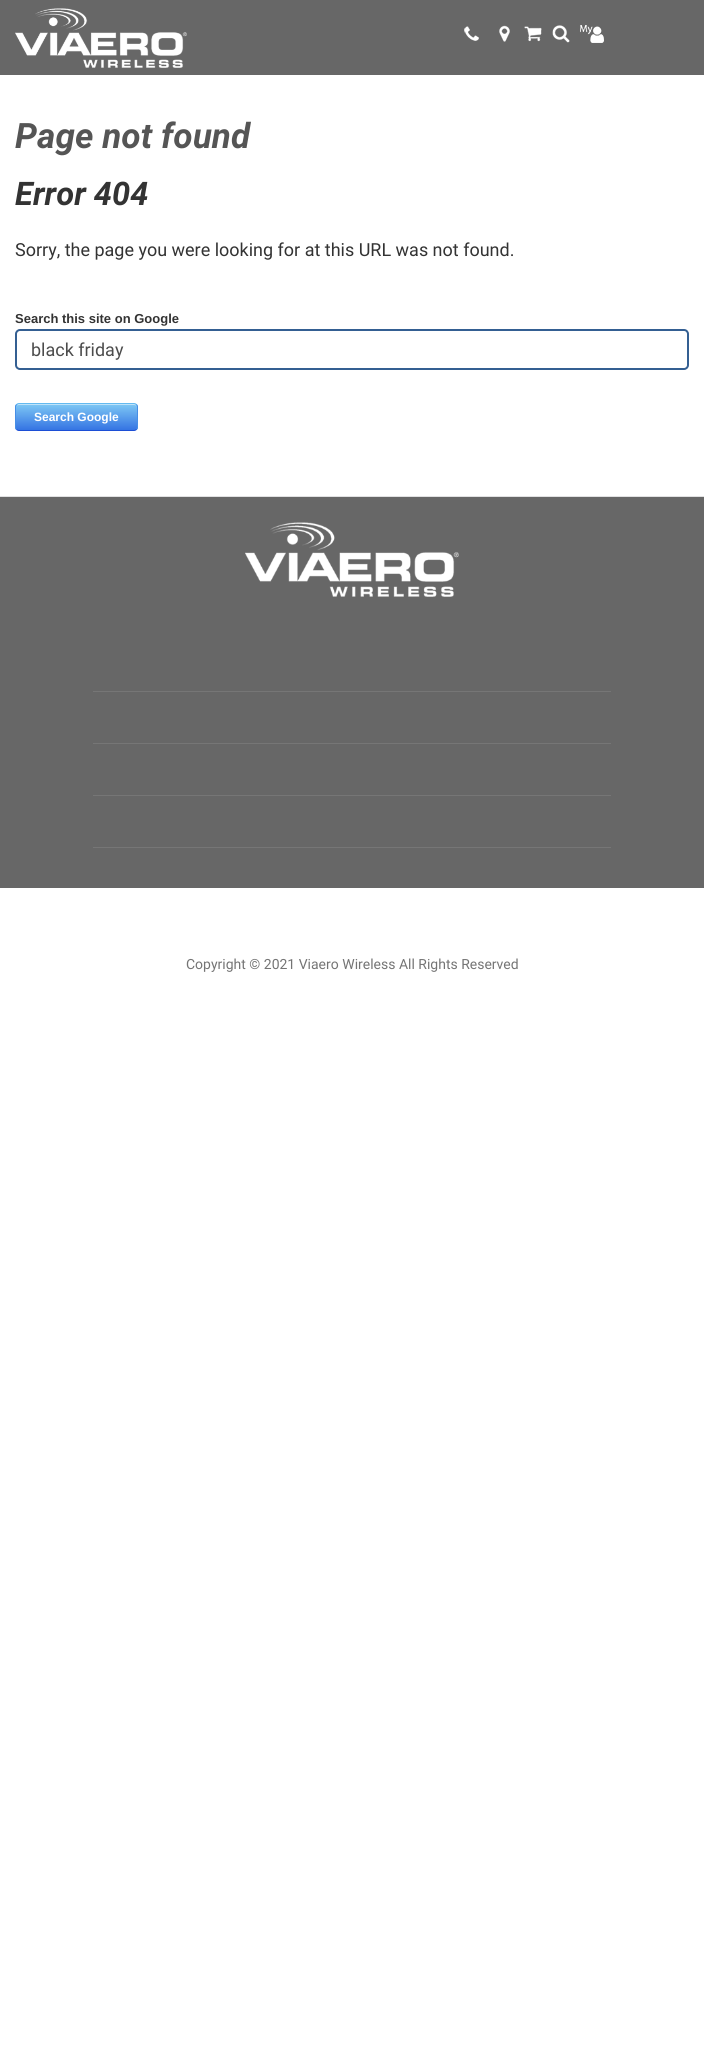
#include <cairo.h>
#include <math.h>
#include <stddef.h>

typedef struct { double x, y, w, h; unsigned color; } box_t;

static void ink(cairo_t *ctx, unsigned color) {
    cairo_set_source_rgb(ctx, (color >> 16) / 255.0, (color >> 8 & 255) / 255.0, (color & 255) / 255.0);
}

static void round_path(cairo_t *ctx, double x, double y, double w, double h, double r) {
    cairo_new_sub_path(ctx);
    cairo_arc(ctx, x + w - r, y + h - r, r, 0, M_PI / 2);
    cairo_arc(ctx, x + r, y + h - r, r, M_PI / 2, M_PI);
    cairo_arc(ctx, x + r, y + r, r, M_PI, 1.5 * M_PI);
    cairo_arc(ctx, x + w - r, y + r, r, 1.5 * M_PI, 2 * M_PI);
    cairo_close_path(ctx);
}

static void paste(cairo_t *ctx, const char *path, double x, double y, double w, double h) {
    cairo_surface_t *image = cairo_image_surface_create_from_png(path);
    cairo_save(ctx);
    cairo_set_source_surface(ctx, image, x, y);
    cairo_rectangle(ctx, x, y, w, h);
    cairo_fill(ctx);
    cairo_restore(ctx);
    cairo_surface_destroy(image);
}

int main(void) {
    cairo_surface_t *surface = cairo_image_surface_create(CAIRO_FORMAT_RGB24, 704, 2049);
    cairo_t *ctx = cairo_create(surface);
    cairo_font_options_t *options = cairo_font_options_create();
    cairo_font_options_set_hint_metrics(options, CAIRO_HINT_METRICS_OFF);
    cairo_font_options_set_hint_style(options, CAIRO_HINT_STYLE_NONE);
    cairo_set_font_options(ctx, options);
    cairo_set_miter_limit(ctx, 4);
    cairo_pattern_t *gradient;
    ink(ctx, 0xFFFFFF);
    cairo_paint(ctx);
    ink(ctx, 0x676767);
    cairo_rectangle(ctx, 0, 0, 704, 75);
    cairo_fill(ctx);
    paste(ctx, "media/1.png", 15, 8, 172, 60);
    paste(ctx, "media/2.png", 464, 26, 15, 15);
    paste(ctx, "media/3.png", 499, 25, 11, 17);
    paste(ctx, "media/4.png", 524, 26, 18, 16);
    paste(ctx, "media/5.png", 552, 25, 18, 18);
    paste(ctx, "media/6.png", 580, 25, 24, 18);
    cairo_select_font_face(ctx, "Roboto", CAIRO_FONT_SLANT_ITALIC, CAIRO_FONT_WEIGHT_BOLD);
    cairo_set_font_size(ctx, 35);
    ink(ctx, 0x555555);
    cairo_move_to(ctx, 15, 148);
    cairo_show_text(ctx, "Page not found");
    cairo_set_font_size(ctx, 32.5);
    ink(ctx, 0x333333);
    cairo_move_to(ctx, 15, 205);
    cairo_show_text(ctx, "Error 404");
    cairo_select_font_face(ctx, "Roboto", CAIRO_FONT_SLANT_NORMAL, CAIRO_FONT_WEIGHT_NORMAL);
    cairo_set_font_size(ctx, 18);
    cairo_move_to(ctx, 15, 256);
    cairo_show_text(ctx, "Sorry, the page you were looking for at this URL was not found.");
    cairo_select_font_face(ctx, "Liberation Sans", CAIRO_FONT_SLANT_NORMAL, CAIRO_FONT_WEIGHT_BOLD);
    cairo_set_font_size(ctx, 13);
    cairo_move_to(ctx, 15, 323);
    cairo_show_text(ctx, "Search this site on Google");
    round_path(ctx, 16, 330, 672, 39, 4);
    ink(ctx, 0x345F92);
    cairo_stroke(ctx);
    cairo_select_font_face(ctx, "Roboto", CAIRO_FONT_SLANT_NORMAL, CAIRO_FONT_WEIGHT_NORMAL);
    cairo_set_font_size(ctx, 18);
    ink(ctx, 0x4C4C4C);
    cairo_move_to(ctx, 31, 356);
    cairo_show_text(ctx, "black friday");
    cairo_save(ctx);
    round_path(ctx, 15, 403, 123, 28, 4);
    cairo_clip(ctx);
    gradient = cairo_pattern_create_linear(77, 404, 77, 430);
    cairo_pattern_add_color_stop_rgba(gradient, 0, 0.494, 0.784, 0.957, 1);
    cairo_pattern_add_color_stop_rgba(gradient, 1, 0.208, 0.455, 0.89, 1);
    cairo_set_source(ctx, gradient);
    cairo_pattern_destroy(gradient);
    cairo_rectangle(ctx, 15, 404, 123, 26);
    cairo_fill(ctx);
    cairo_restore(ctx);
    cairo_set_source_rgba(ctx, 1, 1, 1, 0.5);
    cairo_new_path(ctx);
    cairo_move_to(ctx, 19, 405);
    cairo_line_to(ctx, 134, 405);
    cairo_curve_to(ctx, 136, 405, 137, 406, 137, 408);
    cairo_curve_to(ctx, 137, 406, 136, 404, 134, 404);
    cairo_line_to(ctx, 38, 404);
    cairo_curve_to(ctx, 37, 404, 16, 399, 16, 408);
    cairo_curve_to(ctx, 16, 406, 17, 405, 19, 405);
    cairo_close_path(ctx);
    cairo_fill(ctx);
    cairo_new_path(ctx);
    cairo_move_to(ctx, 16.5, 404.5);
    cairo_curve_to(ctx, 17, 404, 18, 403.5, 19, 403.5);
    cairo_line_to(ctx, 134, 403.5);
    cairo_curve_to(ctx, 135, 403.5, 136, 404, 136.5, 404.5);
    ink(ctx, 0x64BAF0);
    cairo_set_line_width(ctx, 1);
    cairo_stroke(ctx);
    cairo_new_path(ctx);
    cairo_move_to(ctx, 136.5, 404.5);
    cairo_curve_to(ctx, 137, 405, 137.5, 406, 137.5, 407);
    cairo_line_to(ctx, 137.5, 427);
    cairo_curve_to(ctx, 137.5, 428, 137, 429, 136.5, 429.5);
    ink(ctx, 0x468EE6);
    cairo_stroke(ctx);
    cairo_new_path(ctx);
    cairo_move_to(ctx, 136.5, 429.5);
    cairo_curve_to(ctx, 136, 430, 135, 430.5, 134, 430.5);
    cairo_line_to(ctx, 19, 430.5);
    cairo_curve_to(ctx, 18, 430.5, 17, 430, 16.5, 429.5);
    ink(ctx, 0x1C4ED5);
    cairo_stroke(ctx);
    cairo_new_path(ctx);
    cairo_move_to(ctx, 16.5, 429.5);
    cairo_curve_to(ctx, 16, 429, 15.5, 428, 15.5, 427);
    cairo_line_to(ctx, 15.5, 407);
    cairo_curve_to(ctx, 15.5, 406, 16, 405, 16.5, 404.5);
    ink(ctx, 0x468EE6);
    cairo_stroke(ctx);
    cairo_select_font_face(ctx, "Liberation Sans", CAIRO_FONT_SLANT_NORMAL, CAIRO_FONT_WEIGHT_BOLD);
    cairo_set_font_size(ctx, 12);
    ink(ctx, 0xFFFFFF);
    cairo_move_to(ctx, 34, 421);
    cairo_show_text(ctx, "Search Google");
    ink(ctx, 0x676767);
    cairo_rectangle(ctx, 0, 497, 704, 391);
    cairo_fill(ctx);
    ink(ctx, 0xE1E1E2);
    cairo_rectangle(ctx, 0, 496, 704, 1);
    cairo_fill(ctx);
    paste(ctx, "media/7.png", 245, 522, 214, 75);
    {
        static const box_t items[] = {
            {93, 691, 518, 1, 0x767676},
            {93, 743, 518, 1, 0x767676},
            {93, 795, 518, 1, 0x767676},
            {93, 847, 518, 1, 0x767676},
        };
        for (size_t i = 0; i < sizeof items / sizeof *items; i++) {
            ink(ctx, items[i].color);
            cairo_rectangle(ctx, items[i].x, items[i].y, items[i].w, items[i].h);
            cairo_fill(ctx);
        }
    }
    cairo_select_font_face(ctx, "Roboto", CAIRO_FONT_SLANT_NORMAL, CAIRO_FONT_WEIGHT_NORMAL);
    cairo_set_font_size(ctx, 14);
    ink(ctx, 0x747474);
    cairo_move_to(ctx, 186, 969);
    cairo_show_text(ctx, "Copyright © 2021 Viaero Wireless All Rights Reserved");
    cairo_surface_write_to_png(surface, "image.png");
    cairo_font_options_destroy(options);
    cairo_destroy(ctx);
    cairo_surface_destroy(surface);
    return 0;
}
